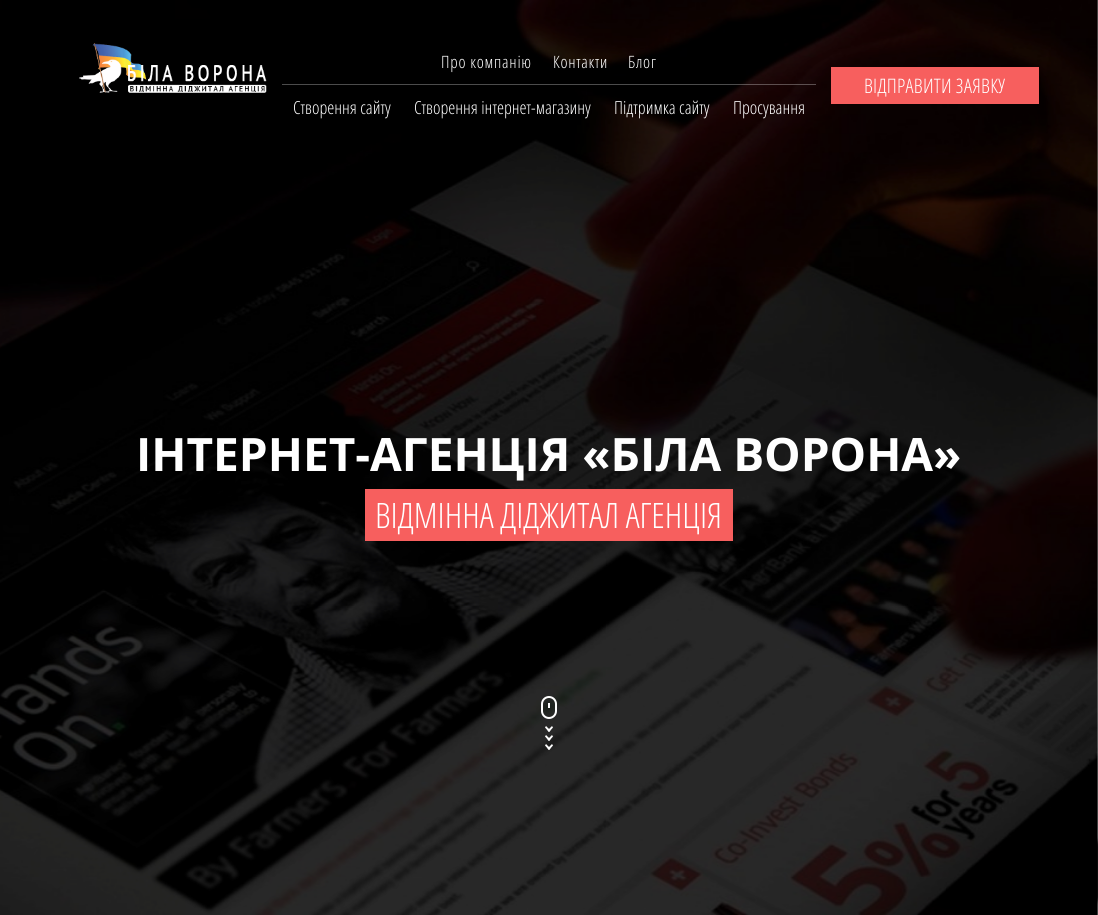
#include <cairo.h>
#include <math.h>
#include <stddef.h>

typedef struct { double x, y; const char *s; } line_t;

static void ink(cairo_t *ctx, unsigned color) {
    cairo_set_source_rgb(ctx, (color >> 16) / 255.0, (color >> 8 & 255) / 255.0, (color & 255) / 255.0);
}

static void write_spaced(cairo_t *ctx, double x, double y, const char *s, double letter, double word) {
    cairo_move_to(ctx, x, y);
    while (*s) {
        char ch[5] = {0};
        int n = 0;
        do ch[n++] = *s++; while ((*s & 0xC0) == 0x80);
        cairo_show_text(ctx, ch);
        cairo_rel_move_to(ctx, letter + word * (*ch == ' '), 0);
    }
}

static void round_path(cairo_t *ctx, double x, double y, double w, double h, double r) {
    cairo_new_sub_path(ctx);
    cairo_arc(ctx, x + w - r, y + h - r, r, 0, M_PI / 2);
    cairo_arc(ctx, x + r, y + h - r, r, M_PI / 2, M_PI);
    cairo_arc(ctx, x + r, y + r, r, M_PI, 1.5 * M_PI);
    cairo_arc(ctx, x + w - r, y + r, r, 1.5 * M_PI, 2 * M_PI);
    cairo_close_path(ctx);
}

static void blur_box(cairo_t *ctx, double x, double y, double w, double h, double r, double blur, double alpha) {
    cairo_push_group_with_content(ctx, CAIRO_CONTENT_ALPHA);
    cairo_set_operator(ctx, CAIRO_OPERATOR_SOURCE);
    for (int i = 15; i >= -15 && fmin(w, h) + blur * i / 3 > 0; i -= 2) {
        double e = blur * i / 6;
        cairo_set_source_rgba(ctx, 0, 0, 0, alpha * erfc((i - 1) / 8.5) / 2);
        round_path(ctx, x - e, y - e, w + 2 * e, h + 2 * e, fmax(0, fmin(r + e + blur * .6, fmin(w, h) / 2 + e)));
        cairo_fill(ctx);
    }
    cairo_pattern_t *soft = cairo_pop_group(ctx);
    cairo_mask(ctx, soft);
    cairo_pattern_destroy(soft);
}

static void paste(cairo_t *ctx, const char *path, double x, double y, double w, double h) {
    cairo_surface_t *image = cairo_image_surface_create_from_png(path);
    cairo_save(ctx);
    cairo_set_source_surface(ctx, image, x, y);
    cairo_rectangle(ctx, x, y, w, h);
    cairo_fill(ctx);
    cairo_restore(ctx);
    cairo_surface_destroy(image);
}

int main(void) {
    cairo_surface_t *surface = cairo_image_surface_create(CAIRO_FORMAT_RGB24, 1098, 915);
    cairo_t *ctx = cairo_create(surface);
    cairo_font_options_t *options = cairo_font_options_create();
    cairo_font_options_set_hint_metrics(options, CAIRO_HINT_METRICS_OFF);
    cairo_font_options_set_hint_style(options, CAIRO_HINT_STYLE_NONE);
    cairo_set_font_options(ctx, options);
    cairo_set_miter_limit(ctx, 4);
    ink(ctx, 0xFFFFFF);
    cairo_paint(ctx);
    ink(ctx, 0x2D2D2D);
    blur_box(ctx, 1028, 841, 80, 60, 2, 2.5, 1);
    paste(ctx, "media/1.png", 0, 0, 1098, 915);
    paste(ctx, "media/2.png", 79, 43, 188, 50);
    cairo_select_font_face(ctx, "Open Sans Light", CAIRO_FONT_SLANT_NORMAL, CAIRO_FONT_WEIGHT_NORMAL);
    cairo_set_font_size(ctx, 17);
    ink(ctx, 0xFFFFFF);
    {
        static const line_t items[] = {
            {441, 68, "Про компанію"},
            {553, 68, "Контакти"},
            {628, 68, "Блог"},
        };
        for (size_t i = 0; i < sizeof items / sizeof *items; i++) {
            write_spaced(ctx, items[i].x, items[i].y, items[i].s, 0.75, 0);
        }
    }
    cairo_set_source_rgba(ctx, 1, 1, 1, 0.3);
    cairo_rectangle(ctx, 282, 84, 534, 1);
    cairo_fill(ctx);
    cairo_set_font_size(ctx, 18);
    ink(ctx, 0xFFFFFF);
    {
        static const line_t items[] = {
            {293, 114, "Створення сайту"},
            {414, 114, "Створення інтернет-магазину"},
            {614, 114, "Підтримка сайту"},
            {733, 114, "Просування"},
        };
        for (size_t i = 0; i < sizeof items / sizeof *items; i++) {
            cairo_move_to(ctx, items[i].x, items[i].y);
            cairo_show_text(ctx, items[i].s);
        }
    }
    ink(ctx, 0xF75F5E);
    cairo_rectangle(ctx, 831, 67, 208, 37);
    cairo_fill(ctx);
    cairo_set_font_size(ctx, 20);
    ink(ctx, 0xFFFFFF);
    write_spaced(ctx, 864, 93, "ВІДПРАВИТИ ЗАЯВКУ", 0.25, 0);
    cairo_select_font_face(ctx, "Open Sans", CAIRO_FONT_SLANT_NORMAL, CAIRO_FONT_WEIGHT_BOLD);
    cairo_set_font_size(ctx, 46);
    cairo_move_to(ctx, 136, 471);
    cairo_show_text(ctx, "ІНТЕРНЕТ-АГЕНЦІЯ «БІЛА ВОРОНА»");
    ink(ctx, 0xF75F5E);
    cairo_rectangle(ctx, 365, 489, 368, 52);
    cairo_fill(ctx);
    cairo_select_font_face(ctx, "Open Sans Light", CAIRO_FONT_SLANT_NORMAL, CAIRO_FONT_WEIGHT_NORMAL);
    cairo_set_font_size(ctx, 35);
    ink(ctx, 0xFFFFFF);
    cairo_move_to(ctx, 375, 528);
    cairo_show_text(ctx, "ВІДМІННА ДІДЖИТАЛ АГЕНЦІЯ");
    round_path(ctx, 542, 697, 14, 21, 7);
    cairo_stroke(ctx);
    cairo_rectangle(ctx, 548, 703, 2, 5);
    cairo_fill(ctx);
    cairo_new_path(ctx);
    cairo_move_to(ctx, 552, 726);
    cairo_line_to(ctx, 553, 727.5);
    cairo_line_to(ctx, 549, 732);
    cairo_line_to(ctx, 547.5, 730.5);
    cairo_close_path(ctx);
    cairo_fill(ctx);
    cairo_new_path(ctx);
    cairo_move_to(ctx, 546, 726);
    cairo_line_to(ctx, 550.5, 730.5);
    cairo_line_to(ctx, 549, 732);
    cairo_line_to(ctx, 545, 727.5);
    cairo_close_path(ctx);
    cairo_move_to(ctx, 552, 735);
    cairo_line_to(ctx, 553, 736.5);
    cairo_line_to(ctx, 549, 741);
    cairo_line_to(ctx, 547.5, 739.5);
    cairo_close_path(ctx);
    cairo_fill(ctx);
    cairo_new_path(ctx);
    cairo_move_to(ctx, 546, 735);
    cairo_line_to(ctx, 550.5, 739.5);
    cairo_line_to(ctx, 549, 741);
    cairo_line_to(ctx, 545, 736.5);
    cairo_close_path(ctx);
    cairo_move_to(ctx, 552, 744);
    cairo_line_to(ctx, 553, 745.5);
    cairo_line_to(ctx, 549, 750);
    cairo_line_to(ctx, 547.5, 748.5);
    cairo_close_path(ctx);
    cairo_fill(ctx);
    cairo_new_path(ctx);
    cairo_move_to(ctx, 546, 744);
    cairo_line_to(ctx, 550.5, 748.5);
    cairo_line_to(ctx, 549, 750);
    cairo_line_to(ctx, 545, 745.5);
    cairo_close_path(ctx);
    cairo_fill(ctx);
    cairo_surface_write_to_png(surface, "image.png");
    cairo_font_options_destroy(options);
    cairo_destroy(ctx);
    cairo_surface_destroy(surface);
    return 0;
}
